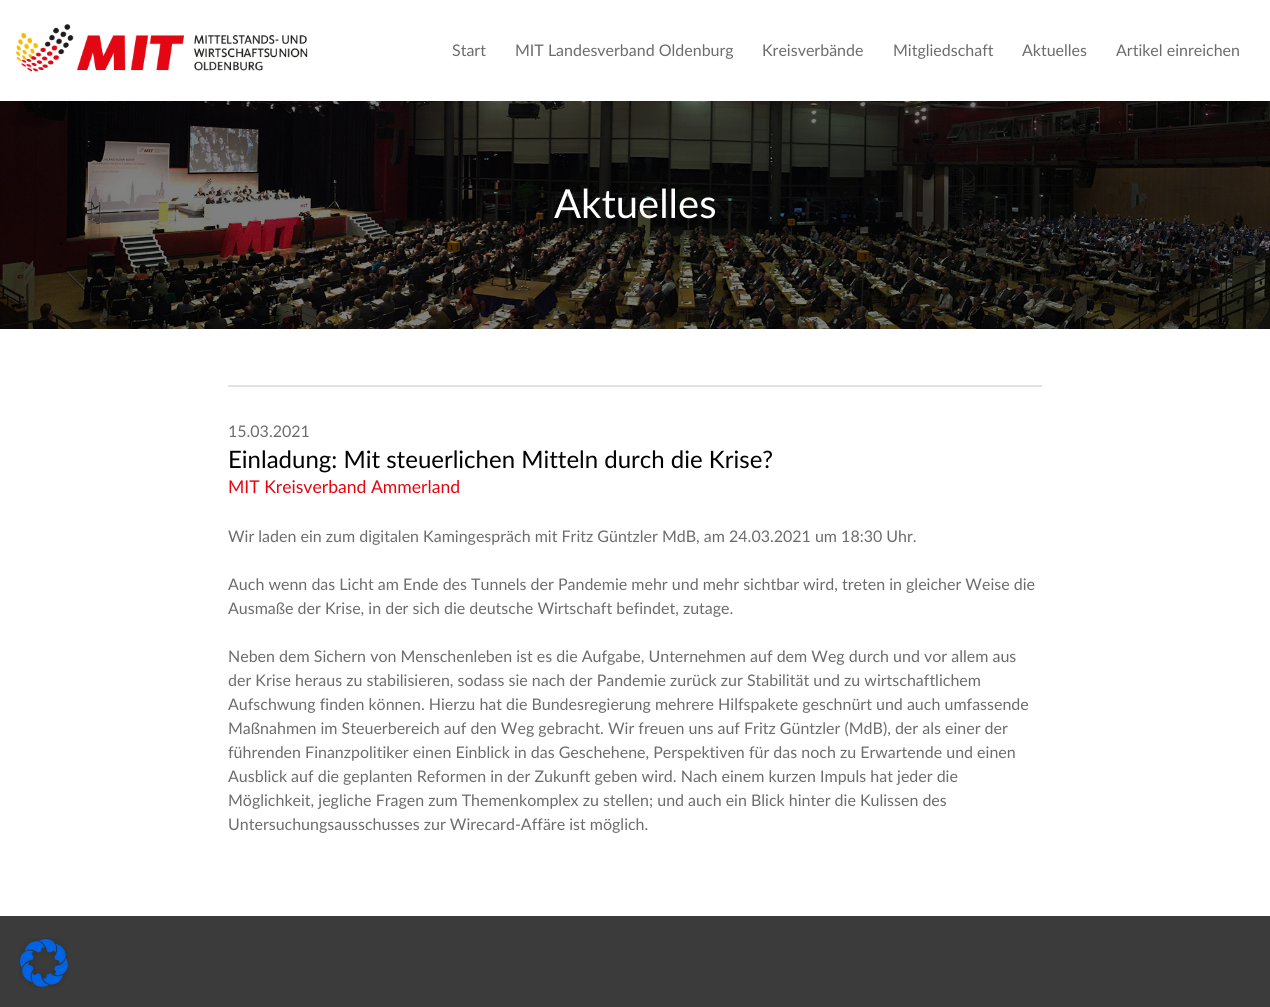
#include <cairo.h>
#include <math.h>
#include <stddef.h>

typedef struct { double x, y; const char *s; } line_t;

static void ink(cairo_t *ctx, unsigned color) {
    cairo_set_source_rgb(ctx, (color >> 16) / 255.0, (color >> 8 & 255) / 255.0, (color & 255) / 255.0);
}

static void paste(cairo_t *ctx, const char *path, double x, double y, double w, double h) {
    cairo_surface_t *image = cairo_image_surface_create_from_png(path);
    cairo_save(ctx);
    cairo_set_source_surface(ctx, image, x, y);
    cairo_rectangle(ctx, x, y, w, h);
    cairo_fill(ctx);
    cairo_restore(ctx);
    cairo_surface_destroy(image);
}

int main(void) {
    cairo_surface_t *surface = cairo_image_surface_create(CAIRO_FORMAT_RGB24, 1270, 1007);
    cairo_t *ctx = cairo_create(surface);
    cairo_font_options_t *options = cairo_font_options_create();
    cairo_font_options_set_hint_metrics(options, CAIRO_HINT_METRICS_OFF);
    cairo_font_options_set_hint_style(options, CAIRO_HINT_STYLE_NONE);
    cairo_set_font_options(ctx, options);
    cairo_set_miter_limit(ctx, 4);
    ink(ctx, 0xFFFFFF);
    cairo_paint(ctx);
    paste(ctx, "media/1.png", 16, 24, 292, 48);
    cairo_select_font_face(ctx, "Lato", CAIRO_FONT_SLANT_NORMAL, CAIRO_FONT_WEIGHT_NORMAL);
    cairo_set_font_size(ctx, 16);
    ink(ctx, 0x6C6C6C);
    {
        static const line_t items[] = {
            {452, 56, "Start"},
            {515, 56, "MIT Landesverband Oldenburg"},
            {762, 56, "Kreisverbände"},
            {893, 56, "Mitgliedschaft"},
            {1022, 56, "Aktuelles"},
            {1116, 56, "Artikel einreichen"},
        };
        for (size_t i = 0; i < sizeof items / sizeof *items; i++) {
            cairo_move_to(ctx, items[i].x, items[i].y);
            cairo_show_text(ctx, items[i].s);
        }
    }
    paste(ctx, "media/2.png", 0, 101, 1270, 228);
    cairo_set_font_size(ctx, 40);
    ink(ctx, 0xFFFFFF);
    cairo_move_to(ctx, 554, 218);
    cairo_show_text(ctx, "Aktuelles");
    ink(ctx, 0xE1E2E4);
    cairo_rectangle(ctx, 228, 385, 814, 2);
    cairo_fill(ctx);
    cairo_set_font_size(ctx, 16);
    ink(ctx, 0x6C6C6C);
    cairo_move_to(ctx, 228, 437);
    cairo_show_text(ctx, "15.03.2021");
    cairo_set_font_size(ctx, 24);
    ink(ctx, 0x000000);
    cairo_move_to(ctx, 228, 468);
    cairo_show_text(ctx, "Einladung: Mit steuerlichen Mitteln durch die Krise?");
    cairo_set_font_size(ctx, 17.6);
    ink(ctx, 0xE6050F);
    cairo_move_to(ctx, 228, 493);
    cairo_show_text(ctx, "MIT Kreisverband Ammerland");
    cairo_set_font_size(ctx, 16);
    ink(ctx, 0x6C6C6C);
    {
        static const line_t items[] = {
            {228, 542, "Wir laden ein zum digitalen Kamingespräch mit Fritz Güntzler MdB, am 24.03.2021 um 18:30 Uhr."},
            {228, 590, "Auch wenn das Licht am Ende des Tunnels der Pandemie mehr und mehr sichtbar wird, treten in gleicher Weise die"},
            {228, 614, "Ausmaße der Krise, in der sich die deutsche Wirtschaft befindet, zutage."},
            {228, 662, "Neben dem Sichern von Menschenleben ist es die Aufgabe, Unternehmen auf dem Weg durch und vor allem aus"},
            {228, 686, "der Krise heraus zu stabilisieren, sodass sie nach der Pandemie zurück zur Stabilität und zu wirtschaftlichem"},
            {228, 710, "Aufschwung finden können. Hierzu hat die Bundesregierung mehrere Hilfspakete geschnürt und auch umfassende"},
            {228, 734, "Maßnahmen im Steuerbereich auf den Weg gebracht. Wir freuen uns auf Fritz Güntzler (MdB), der als einer der"},
            {228, 758, "führenden Finanzpolitiker einen Einblick in das Geschehene, Perspektiven für das noch zu Erwartende und einen"},
            {228, 782, "Ausblick auf die geplanten Reformen in der Zukunft geben wird. Nach einem kurzen Impuls hat jeder die"},
            {228, 806, "Möglichkeit, jegliche Fragen zum Themenkomplex zu stellen; und auch ein Blick hinter die Kulissen des"},
            {228, 830, "Untersuchungsausschusses zur Wirecard-Affäre ist möglich."},
        };
        for (size_t i = 0; i < sizeof items / sizeof *items; i++) {
            cairo_move_to(ctx, items[i].x, items[i].y);
            cairo_show_text(ctx, items[i].s);
        }
    }
    ink(ctx, 0x3B3B3B);
    cairo_rectangle(ctx, 0, 916, 1270, 91);
    cairo_fill(ctx);
    paste(ctx, "media/3.png", 19, 938, 49, 50);
    cairo_surface_write_to_png(surface, "image.png");
    cairo_font_options_destroy(options);
    cairo_destroy(ctx);
    cairo_surface_destroy(surface);
    return 0;
}
